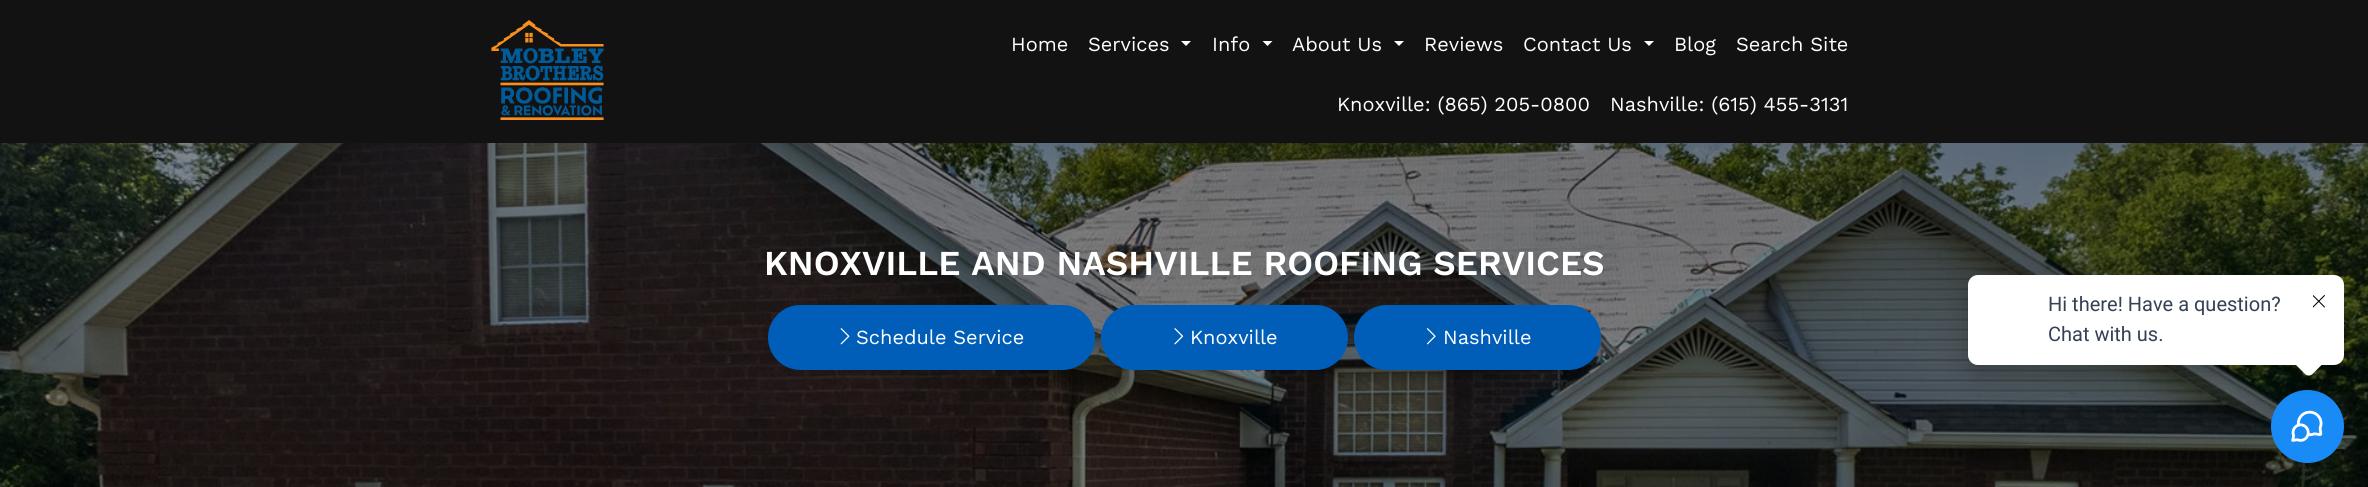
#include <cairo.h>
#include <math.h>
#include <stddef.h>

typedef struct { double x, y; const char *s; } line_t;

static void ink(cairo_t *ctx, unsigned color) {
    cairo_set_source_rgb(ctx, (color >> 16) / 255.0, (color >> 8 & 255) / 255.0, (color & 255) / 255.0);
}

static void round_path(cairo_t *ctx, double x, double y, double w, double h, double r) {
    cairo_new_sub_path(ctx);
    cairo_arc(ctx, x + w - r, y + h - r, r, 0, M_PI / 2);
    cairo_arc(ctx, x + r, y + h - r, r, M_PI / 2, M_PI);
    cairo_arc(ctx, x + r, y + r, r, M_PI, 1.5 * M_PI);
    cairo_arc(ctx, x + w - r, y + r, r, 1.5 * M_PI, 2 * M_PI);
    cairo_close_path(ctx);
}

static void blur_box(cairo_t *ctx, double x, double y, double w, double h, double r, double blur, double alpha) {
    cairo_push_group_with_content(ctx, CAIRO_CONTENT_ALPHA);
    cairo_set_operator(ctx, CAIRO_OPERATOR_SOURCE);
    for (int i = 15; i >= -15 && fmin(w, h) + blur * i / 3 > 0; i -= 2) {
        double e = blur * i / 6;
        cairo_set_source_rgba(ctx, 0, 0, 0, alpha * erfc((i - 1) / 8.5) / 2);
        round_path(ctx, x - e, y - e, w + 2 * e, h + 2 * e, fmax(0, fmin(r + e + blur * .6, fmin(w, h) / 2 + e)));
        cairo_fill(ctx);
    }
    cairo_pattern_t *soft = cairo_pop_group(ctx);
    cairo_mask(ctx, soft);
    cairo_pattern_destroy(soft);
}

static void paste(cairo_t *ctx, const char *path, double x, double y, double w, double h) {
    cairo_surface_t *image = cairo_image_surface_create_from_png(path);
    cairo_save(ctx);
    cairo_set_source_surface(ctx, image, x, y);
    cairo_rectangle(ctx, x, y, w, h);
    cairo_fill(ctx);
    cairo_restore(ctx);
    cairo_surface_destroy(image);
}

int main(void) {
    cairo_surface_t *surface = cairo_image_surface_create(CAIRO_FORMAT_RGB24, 2368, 487);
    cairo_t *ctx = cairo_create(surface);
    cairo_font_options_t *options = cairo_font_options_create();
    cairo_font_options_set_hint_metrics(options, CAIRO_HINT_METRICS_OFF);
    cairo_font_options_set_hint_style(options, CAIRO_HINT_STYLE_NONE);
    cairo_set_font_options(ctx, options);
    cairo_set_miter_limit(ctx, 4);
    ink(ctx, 0xFFFFFF);
    cairo_paint(ctx);
    ink(ctx, 0x121212);
    cairo_rectangle(ctx, 0, 0, 2368, 143);
    cairo_fill(ctx);
    paste(ctx, "media/1.png", 491, 20, 113, 100);
    cairo_select_font_face(ctx, "Work Sans", CAIRO_FONT_SLANT_NORMAL, CAIRO_FONT_WEIGHT_NORMAL);
    cairo_set_font_size(ctx, 20);
    ink(ctx, 0xFFFFFF);
    cairo_move_to(ctx, 1011, 51);
    cairo_show_text(ctx, "Home");
    cairo_move_to(ctx, 1088, 51);
    cairo_show_text(ctx, "Services");
    cairo_new_path(ctx);
    cairo_move_to(ctx, 1181, 41);
    cairo_line_to(ctx, 1191, 41);
    cairo_line_to(ctx, 1186, 46);
    cairo_close_path(ctx);
    cairo_fill(ctx);
    cairo_move_to(ctx, 1212, 51);
    cairo_show_text(ctx, "Info");
    cairo_new_path(ctx);
    cairo_move_to(ctx, 1262.5, 41);
    cairo_line_to(ctx, 1272.5, 41);
    cairo_line_to(ctx, 1267.5, 46);
    cairo_close_path(ctx);
    cairo_fill(ctx);
    cairo_move_to(ctx, 1292, 51);
    cairo_show_text(ctx, "About Us");
    cairo_new_path(ctx);
    cairo_move_to(ctx, 1394, 41);
    cairo_line_to(ctx, 1404, 41);
    cairo_line_to(ctx, 1399, 46);
    cairo_close_path(ctx);
    cairo_fill(ctx);
    cairo_move_to(ctx, 1424, 51);
    cairo_show_text(ctx, "Reviews");
    cairo_move_to(ctx, 1523, 51);
    cairo_show_text(ctx, "Contact Us");
    cairo_new_path(ctx);
    cairo_move_to(ctx, 1644, 41);
    cairo_line_to(ctx, 1654, 41);
    cairo_line_to(ctx, 1649, 46);
    cairo_close_path(ctx);
    cairo_fill(ctx);
    {
        static const line_t items[] = {
            {1674, 51, "Blog"},
            {1736, 51, "Search Site"},
            {1337, 111, "Knoxville: (865) 205-0800"},
            {1610, 111, "Nashville: (615) 455-3131"},
        };
        for (size_t i = 0; i < sizeof items / sizeof *items; i++) {
            cairo_move_to(ctx, items[i].x, items[i].y);
            cairo_show_text(ctx, items[i].s);
        }
    }
    paste(ctx, "media/2.png", 0, 143, 2368, 344);
    cairo_select_font_face(ctx, "Work Sans SemiBold", CAIRO_FONT_SLANT_NORMAL, CAIRO_FONT_WEIGHT_NORMAL);
    cairo_set_font_size(ctx, 35);
    cairo_move_to(ctx, 764, 275);
    cairo_show_text(ctx, "KNOXVILLE AND NASHVILLE ROOFING SERVICES");
    ink(ctx, 0x005EB8);
    round_path(ctx, 768, 305, 327, 65, 32.5);
    cairo_fill(ctx);
    paste(ctx, "media/3.png", 840, 328, 10, 17);
    cairo_select_font_face(ctx, "Work Sans", CAIRO_FONT_SLANT_NORMAL, CAIRO_FONT_WEIGHT_NORMAL);
    cairo_set_font_size(ctx, 20);
    ink(ctx, 0xFFFFFF);
    cairo_move_to(ctx, 856, 344);
    cairo_show_text(ctx, "Schedule Service");
    ink(ctx, 0x005EB8);
    round_path(ctx, 1101, 305, 247, 65, 32.5);
    cairo_fill(ctx);
    paste(ctx, "media/4.png", 1174, 328, 10, 17);
    ink(ctx, 0xFFFFFF);
    cairo_move_to(ctx, 1190, 344);
    cairo_show_text(ctx, "Knoxville");
    ink(ctx, 0x005EB8);
    round_path(ctx, 1354, 305, 247, 65, 32.5);
    cairo_fill(ctx);
    paste(ctx, "media/5.png", 1426, 328, 10, 17);
    ink(ctx, 0xFFFFFF);
    cairo_move_to(ctx, 1443, 344);
    cairo_show_text(ctx, "Nashville");
    ink(ctx, 0x188BF6);
    cairo_new_path(ctx);
    cairo_arc(ctx, 2307.5, 426.5, 36.5, 0, 2 * M_PI);
    cairo_fill(ctx);
    paste(ctx, "media/7.png", 2291, 410, 32, 32);
    ink(ctx, 0x000000);
    blur_box(ctx, 1968, 285, 376, 90, 10, 12.5, 0.24);
    ink(ctx, 0xFFFFFF);
    round_path(ctx, 1968, 275, 376, 90, 10);
    cairo_fill(ctx);
    cairo_select_font_face(ctx, "Roboto", CAIRO_FONT_SLANT_NORMAL, CAIRO_FONT_WEIGHT_NORMAL);
    ink(ctx, 0x344054);
    cairo_move_to(ctx, 2048, 311);
    cairo_show_text(ctx, "Hi there! Have a question?");
    cairo_move_to(ctx, 2048, 341);
    cairo_show_text(ctx, "Chat with us.");
    ink(ctx, 0xFFFFFF);
    cairo_new_path(ctx);
    cairo_move_to(ctx, 2312.5, 346);
    cairo_line_to(ctx, 2323, 356.5);
    cairo_curve_to(ctx, 2325, 358.5, 2325, 361.5, 2323, 363.5);
    cairo_line_to(ctx, 2312.5, 374);
    cairo_curve_to(ctx, 2310.5, 376, 2307, 376, 2305, 374);
    cairo_line_to(ctx, 2294.5, 363.5);
    cairo_curve_to(ctx, 2292.5, 361.5, 2292.5, 358.5, 2294.5, 356.5);
    cairo_line_to(ctx, 2305, 346);
    cairo_curve_to(ctx, 2307, 344, 2310.5, 344, 2312.5, 346);
    cairo_close_path(ctx);
    cairo_fill(ctx);
    paste(ctx, "media/6.png", 2313, 295, 12, 13);
    cairo_surface_write_to_png(surface, "image.png");
    cairo_font_options_destroy(options);
    cairo_destroy(ctx);
    cairo_surface_destroy(surface);
    return 0;
}
